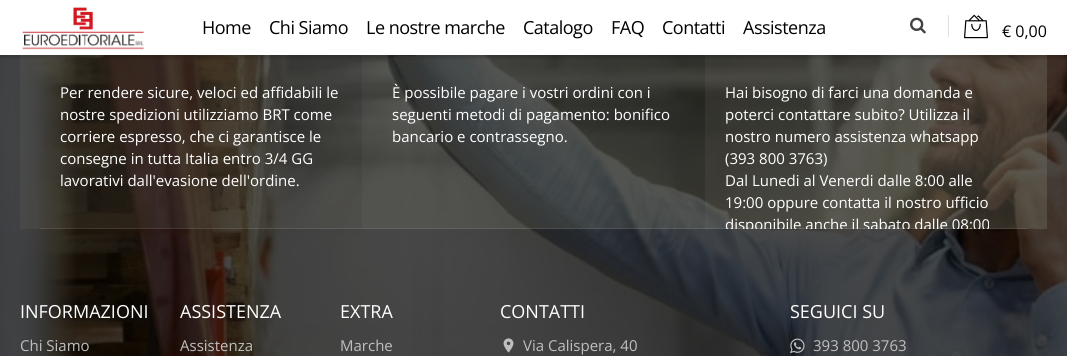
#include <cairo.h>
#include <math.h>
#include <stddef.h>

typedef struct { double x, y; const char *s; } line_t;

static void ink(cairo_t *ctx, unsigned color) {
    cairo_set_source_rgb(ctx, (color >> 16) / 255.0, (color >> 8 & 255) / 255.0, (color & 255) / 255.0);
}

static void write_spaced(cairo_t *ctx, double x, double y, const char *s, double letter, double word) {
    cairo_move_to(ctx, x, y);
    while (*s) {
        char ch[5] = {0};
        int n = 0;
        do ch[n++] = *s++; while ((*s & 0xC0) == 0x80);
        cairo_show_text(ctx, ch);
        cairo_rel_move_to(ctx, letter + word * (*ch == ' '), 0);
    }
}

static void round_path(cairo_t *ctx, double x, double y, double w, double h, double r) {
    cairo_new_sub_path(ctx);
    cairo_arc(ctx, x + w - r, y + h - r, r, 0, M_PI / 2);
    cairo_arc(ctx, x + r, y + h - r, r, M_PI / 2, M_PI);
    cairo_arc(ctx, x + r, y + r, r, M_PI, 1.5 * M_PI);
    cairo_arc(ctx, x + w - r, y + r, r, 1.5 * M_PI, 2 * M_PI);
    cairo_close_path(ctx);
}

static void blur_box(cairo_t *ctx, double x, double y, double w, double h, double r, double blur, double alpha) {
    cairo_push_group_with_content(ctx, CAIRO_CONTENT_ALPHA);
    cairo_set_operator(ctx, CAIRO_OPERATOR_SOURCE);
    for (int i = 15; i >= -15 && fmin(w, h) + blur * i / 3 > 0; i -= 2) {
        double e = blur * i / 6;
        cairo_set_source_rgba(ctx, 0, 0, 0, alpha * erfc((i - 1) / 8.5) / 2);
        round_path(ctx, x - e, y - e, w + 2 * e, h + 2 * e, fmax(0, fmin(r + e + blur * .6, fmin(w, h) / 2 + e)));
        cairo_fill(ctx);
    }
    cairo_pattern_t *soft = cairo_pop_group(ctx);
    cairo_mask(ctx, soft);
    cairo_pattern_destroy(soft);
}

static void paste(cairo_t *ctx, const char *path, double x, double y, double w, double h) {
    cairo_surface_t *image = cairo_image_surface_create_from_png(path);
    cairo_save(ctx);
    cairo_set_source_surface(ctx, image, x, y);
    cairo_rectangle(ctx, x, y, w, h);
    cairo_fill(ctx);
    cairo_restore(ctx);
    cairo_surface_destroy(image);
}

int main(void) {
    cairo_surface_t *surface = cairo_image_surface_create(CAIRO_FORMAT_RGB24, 1067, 356);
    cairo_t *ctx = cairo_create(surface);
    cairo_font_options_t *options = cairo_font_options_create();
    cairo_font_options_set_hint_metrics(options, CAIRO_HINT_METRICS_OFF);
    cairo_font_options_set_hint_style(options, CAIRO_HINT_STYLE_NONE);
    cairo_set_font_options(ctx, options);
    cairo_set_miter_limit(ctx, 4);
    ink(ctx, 0xFFFFFF);
    cairo_paint(ctx);
    paste(ctx, "media/4.png", 0, 55, 1067, 301);
    cairo_set_source_rgba(ctx, 0.494, 0.498, 0.435, 0.14);
    cairo_rectangle(ctx, 20, 55, 342, 174);
    cairo_fill(ctx);
    cairo_set_source_rgba(ctx, 0.494, 0.498, 0.435, 0.22);
    cairo_rectangle(ctx, 362, 55, 343, 174);
    cairo_fill(ctx);
    cairo_set_source_rgba(ctx, 0.494, 0.498, 0.435, 0.32);
    cairo_rectangle(ctx, 705, 55, 342, 174);
    cairo_fill(ctx);
    ink(ctx, 0x000000);
    blur_box(ctx, -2, -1, 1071, 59, 0, 1.5, 0.18);
    ink(ctx, 0xFFFFFF);
    cairo_rectangle(ctx, 0, 0, 1067, 55);
    cairo_fill(ctx);
    paste(ctx, "media/1.png", 22, 7, 123, 43);
    cairo_select_font_face(ctx, "Open Sans", CAIRO_FONT_SLANT_NORMAL, CAIRO_FONT_WEIGHT_NORMAL);
    cairo_set_font_size(ctx, 18);
    ink(ctx, 0x000000);
    {
        static const line_t items[] = {
            {202, 34, "Home"},
            {269, 34, "Chi Siamo"},
            {366, 34, "Le nostre marche"},
            {523, 34, "Catalogo"},
            {611, 34, "FAQ"},
            {662, 34, "Contatti"},
            {743, 34, "Assistenza"},
        };
        for (size_t i = 0; i < sizeof items / sizeof *items; i++) {
            write_spaced(ctx, items[i].x, items[i].y, items[i].s, -0.5, 0);
        }
    }
    paste(ctx, "media/2.png", 910, 17, 16, 17);
    ink(ctx, 0xE0E0E0);
    cairo_rectangle(ctx, 948, 15, 1, 22);
    cairo_fill(ctx);
    paste(ctx, "media/3.png", 964, 14, 24, 25);
    cairo_set_font_size(ctx, 16);
    ink(ctx, 0x000000);
    cairo_move_to(ctx, 1002, 37);
    cairo_show_text(ctx, "€ 0,00");
    cairo_set_font_size(ctx, 15);
    ink(ctx, 0xFFFFFF);
    {
        static const line_t items[] = {
            {60, 98, "Per rendere sicure, veloci ed affidabili le"},
            {60, 120, "nostre spedizioni utilizziamo BRT come"},
            {60, 142, "corriere espresso, che ci garantisce le"},
            {60, 164, "consegne in tutta Italia entro 3/4 GG"},
            {60, 186, "lavorativi dall'evasione dell'ordine."},
            {392, 98, "È possibile pagare i vostri ordini con i"},
            {392, 120, "seguenti metodi di pagamento: bonifico"},
            {392, 142, "bancario e contrassegno."},
            {725, 98, "Hai bisogno di farci una domanda e"},
            {725, 120, "poterci contattare subito? Utilizza il"},
            {725, 142, "nostro numero assistenza whatsapp"},
            {725, 164, "(393 800 3763)"},
            {725, 186, "Dal Lunedi al Venerdi dalle 8:00 alle"},
            {725, 208, "19:00 oppure contatta il nostro ufficio"},
        };
        for (size_t i = 0; i < sizeof items / sizeof *items; i++) {
            cairo_move_to(ctx, items[i].x, items[i].y);
            cairo_show_text(ctx, items[i].s);
        }
    }
    cairo_save(ctx);
    cairo_rectangle(ctx, 0, 0, 1067, 229);
    cairo_clip(ctx);
    cairo_move_to(ctx, 725, 230);
    cairo_show_text(ctx, "disponibile anche il sabato dalle 08:00");
    cairo_restore(ctx);
    cairo_set_source_rgba(ctx, 1, 1, 1, 0.1);
    cairo_rectangle(ctx, 40, 228, 987, 1);
    cairo_fill(ctx);
    cairo_set_font_size(ctx, 18);
    ink(ctx, 0xFFFFFF);
    cairo_move_to(ctx, 20, 318);
    cairo_show_text(ctx, "INFORMAZIONI");
    cairo_set_font_size(ctx, 15);
    ink(ctx, 0xBFBFBF);
    cairo_move_to(ctx, 20, 351);
    cairo_show_text(ctx, "Chi Siamo");
    cairo_set_font_size(ctx, 18);
    ink(ctx, 0xFFFFFF);
    cairo_move_to(ctx, 180, 318);
    cairo_show_text(ctx, "ASSISTENZA");
    cairo_set_font_size(ctx, 15);
    ink(ctx, 0xBFBFBF);
    cairo_move_to(ctx, 180, 351);
    cairo_show_text(ctx, "Assistenza");
    cairo_set_font_size(ctx, 18);
    ink(ctx, 0xFFFFFF);
    cairo_move_to(ctx, 340, 318);
    cairo_show_text(ctx, "EXTRA");
    cairo_set_font_size(ctx, 15);
    ink(ctx, 0xBFBFBF);
    cairo_move_to(ctx, 340, 351);
    cairo_show_text(ctx, "Marche");
    cairo_set_font_size(ctx, 18);
    ink(ctx, 0xFFFFFF);
    cairo_move_to(ctx, 500, 318);
    cairo_show_text(ctx, "CONTATTI");
    paste(ctx, "media/5.png", 503, 338, 11, 15);
    cairo_set_font_size(ctx, 15);
    ink(ctx, 0xBFBFBF);
    cairo_move_to(ctx, 523, 351);
    cairo_show_text(ctx, "Via Calispera, 40");
    cairo_set_font_size(ctx, 18);
    ink(ctx, 0xFFFFFF);
    cairo_move_to(ctx, 790, 318);
    cairo_show_text(ctx, "SEGUICI SU");
    paste(ctx, "media/6.png", 790, 338, 15, 16);
    cairo_set_font_size(ctx, 15);
    ink(ctx, 0xBFBFBF);
    cairo_move_to(ctx, 813, 351);
    cairo_show_text(ctx, "393 800 3763");
    cairo_surface_write_to_png(surface, "image.png");
    cairo_font_options_destroy(options);
    cairo_destroy(ctx);
    cairo_surface_destroy(surface);
    return 0;
}
